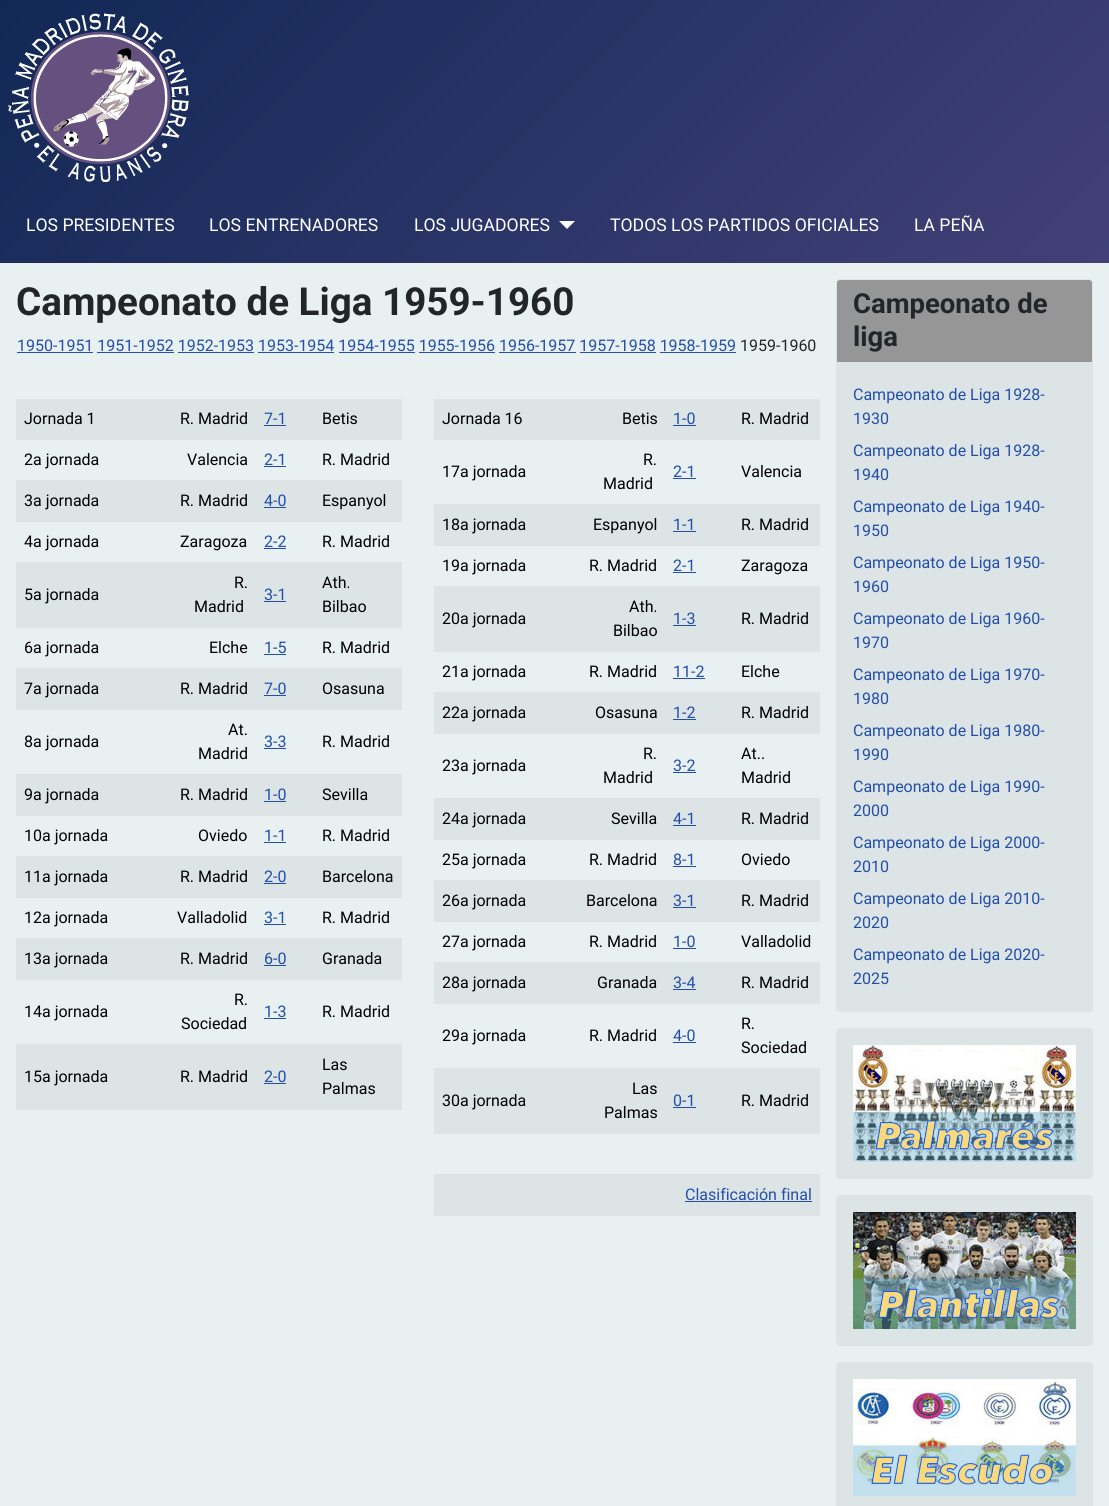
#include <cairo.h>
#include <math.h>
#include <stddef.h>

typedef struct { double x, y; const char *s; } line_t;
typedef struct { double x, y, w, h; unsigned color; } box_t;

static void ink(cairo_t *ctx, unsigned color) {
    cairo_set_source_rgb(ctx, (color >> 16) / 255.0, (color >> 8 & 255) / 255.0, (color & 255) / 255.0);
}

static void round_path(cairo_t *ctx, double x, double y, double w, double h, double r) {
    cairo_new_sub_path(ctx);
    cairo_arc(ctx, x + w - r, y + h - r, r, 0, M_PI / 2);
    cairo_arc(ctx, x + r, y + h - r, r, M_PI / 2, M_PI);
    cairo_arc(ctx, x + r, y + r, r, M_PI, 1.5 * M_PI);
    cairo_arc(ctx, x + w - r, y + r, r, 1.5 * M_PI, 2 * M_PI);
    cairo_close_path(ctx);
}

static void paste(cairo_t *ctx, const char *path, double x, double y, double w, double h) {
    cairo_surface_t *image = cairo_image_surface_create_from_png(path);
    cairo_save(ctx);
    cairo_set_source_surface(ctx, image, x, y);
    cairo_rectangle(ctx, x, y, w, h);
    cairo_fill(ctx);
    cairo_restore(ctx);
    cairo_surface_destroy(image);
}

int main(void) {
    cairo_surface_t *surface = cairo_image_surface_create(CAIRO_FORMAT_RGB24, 1109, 1506);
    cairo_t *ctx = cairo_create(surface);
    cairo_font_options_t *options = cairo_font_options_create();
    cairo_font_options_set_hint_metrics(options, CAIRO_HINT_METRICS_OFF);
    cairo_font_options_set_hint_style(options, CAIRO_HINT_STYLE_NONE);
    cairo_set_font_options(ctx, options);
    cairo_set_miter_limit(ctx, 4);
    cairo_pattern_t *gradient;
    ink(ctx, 0xE8F0F2);
    cairo_paint(ctx);
    gradient = cairo_pattern_create_linear(211, -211, 898, 475);
    cairo_pattern_add_color_stop_rgba(gradient, 0, 0.067, 0.157, 0.333, 1);
    cairo_pattern_add_color_stop_rgba(gradient, 1, 0.259, 0.251, 0.467, 1);
    cairo_set_source(ctx, gradient);
    cairo_pattern_destroy(gradient);
    cairo_rectangle(ctx, 0, 0, 1109, 263);
    cairo_fill(ctx);
    paste(ctx, "media/1.png", 8, 13, 181, 169);
    cairo_select_font_face(ctx, "Roboto", CAIRO_FONT_SLANT_NORMAL, CAIRO_FONT_WEIGHT_NORMAL);
    cairo_set_font_size(ctx, 17.6);
    ink(ctx, 0xFFFFFF);
    {
        static const line_t items[] = {
            {26, 231, "LOS PRESIDENTES"},
            {209, 231, "LOS ENTRENADORES"},
            {414, 231, "LOS JUGADORES"},
        };
        for (size_t i = 0; i < sizeof items / sizeof *items; i++) {
            cairo_move_to(ctx, items[i].x, items[i].y);
            cairo_show_text(ctx, items[i].s);
        }
    }
    cairo_new_path(ctx);
    cairo_move_to(ctx, 559, 221);
    cairo_line_to(ctx, 575, 221);
    cairo_line_to(ctx, 567, 229);
    cairo_close_path(ctx);
    cairo_fill(ctx);
    cairo_move_to(ctx, 610, 231);
    cairo_show_text(ctx, "TODOS LOS PARTIDOS OFICIALES");
    cairo_move_to(ctx, 914, 231);
    cairo_show_text(ctx, "LA PEÑA");
    cairo_select_font_face(ctx, "Roboto", CAIRO_FONT_SLANT_NORMAL, CAIRO_FONT_WEIGHT_BOLD);
    cairo_set_font_size(ctx, 38.6);
    ink(ctx, 0x22262A);
    cairo_move_to(ctx, 16, 315);
    cairo_show_text(ctx, "Campeonato de Liga 1959-1960");
    cairo_select_font_face(ctx, "Roboto", CAIRO_FONT_SLANT_NORMAL, CAIRO_FONT_WEIGHT_NORMAL);
    cairo_set_font_size(ctx, 16);
    ink(ctx, 0x224FAA);
    cairo_move_to(ctx, 17, 351);
    cairo_show_text(ctx, "1950-1951 1951-1952 1952-1953 1953-1954 1954-1955 1955-1956 1956-1957 1957-1958 1958-1959");
    cairo_rectangle(ctx, 17, 352, 76, 1);
    cairo_fill(ctx);
    ink(ctx, 0x22262A);
    cairo_move_to(ctx, 740, 351);
    cairo_show_text(ctx, "1959-1960");
    {
        static const box_t items[] = {
            {97, 352, 77, 1, 0x224FAA},
            {178, 352, 76, 1, 0x224FAA},
            {258, 352, 76, 1, 0x224FAA},
            {339, 352, 76, 1, 0x224FAA},
            {419, 352, 76, 1, 0x224FAA},
            {499, 352, 77, 1, 0x224FAA},
            {580, 352, 76, 1, 0x224FAA},
            {660, 352, 76, 1, 0x224FAA},
            {16, 399, 386, 40, 0xDCE4E6},
        };
        for (size_t i = 0; i < sizeof items / sizeof *items; i++) {
            ink(ctx, items[i].color);
            cairo_rectangle(ctx, items[i].x, items[i].y, items[i].w, items[i].h);
            cairo_fill(ctx);
        }
    }
    ink(ctx, 0x000000);
    cairo_move_to(ctx, 24, 424);
    cairo_show_text(ctx, "Jornada 1");
    cairo_move_to(ctx, 180, 424);
    cairo_show_text(ctx, "R. Madrid");
    ink(ctx, 0x224FAA);
    cairo_move_to(ctx, 264, 424);
    cairo_show_text(ctx, "7-1");
    cairo_rectangle(ctx, 264, 425, 22, 1);
    cairo_fill(ctx);
    ink(ctx, 0xDFE3E7);
    cairo_rectangle(ctx, 16, 439, 386, 1);
    cairo_fill(ctx);
    ink(ctx, 0x000000);
    {
        static const line_t items[] = {
            {322, 424, "Betis"},
            {24, 465, "2a jornada"},
            {187, 465, "Valencia"},
        };
        for (size_t i = 0; i < sizeof items / sizeof *items; i++) {
            cairo_move_to(ctx, items[i].x, items[i].y);
            cairo_show_text(ctx, items[i].s);
        }
    }
    ink(ctx, 0x224FAA);
    cairo_move_to(ctx, 264, 465);
    cairo_show_text(ctx, "2-1");
    cairo_rectangle(ctx, 264, 466, 22, 1);
    cairo_fill(ctx);
    ink(ctx, 0xDFE3E7);
    cairo_rectangle(ctx, 16, 480, 386, 1);
    cairo_fill(ctx);
    ink(ctx, 0x000000);
    cairo_move_to(ctx, 322, 465);
    cairo_show_text(ctx, "R. Madrid");
    ink(ctx, 0xDCE4E6);
    cairo_rectangle(ctx, 16, 481, 386, 40);
    cairo_fill(ctx);
    ink(ctx, 0x000000);
    cairo_move_to(ctx, 24, 506);
    cairo_show_text(ctx, "3a jornada");
    cairo_move_to(ctx, 180, 506);
    cairo_show_text(ctx, "R. Madrid");
    ink(ctx, 0x224FAA);
    cairo_move_to(ctx, 264, 506);
    cairo_show_text(ctx, "4-0");
    cairo_rectangle(ctx, 264, 507, 22, 1);
    cairo_fill(ctx);
    ink(ctx, 0xDFE3E7);
    cairo_rectangle(ctx, 16, 521, 386, 1);
    cairo_fill(ctx);
    ink(ctx, 0x000000);
    {
        static const line_t items[] = {
            {322, 506, "Espanyol"},
            {24, 547, "4a jornada"},
            {180, 547, "Zaragoza"},
        };
        for (size_t i = 0; i < sizeof items / sizeof *items; i++) {
            cairo_move_to(ctx, items[i].x, items[i].y);
            cairo_show_text(ctx, items[i].s);
        }
    }
    ink(ctx, 0x224FAA);
    cairo_move_to(ctx, 264, 547);
    cairo_show_text(ctx, "2-2");
    cairo_rectangle(ctx, 264, 548, 22, 1);
    cairo_fill(ctx);
    ink(ctx, 0xDFE3E7);
    cairo_rectangle(ctx, 16, 562, 386, 1);
    cairo_fill(ctx);
    ink(ctx, 0x000000);
    cairo_move_to(ctx, 322, 547);
    cairo_show_text(ctx, "R. Madrid");
    ink(ctx, 0xDCE4E6);
    cairo_rectangle(ctx, 16, 563, 386, 64);
    cairo_fill(ctx);
    ink(ctx, 0x000000);
    {
        static const line_t items[] = {
            {24, 600, "5a jornada"},
            {234, 588, "R."},
            {194, 612, "Madrid"},
        };
        for (size_t i = 0; i < sizeof items / sizeof *items; i++) {
            cairo_move_to(ctx, items[i].x, items[i].y);
            cairo_show_text(ctx, items[i].s);
        }
    }
    ink(ctx, 0x224FAA);
    cairo_move_to(ctx, 264, 600);
    cairo_show_text(ctx, "3-1");
    cairo_rectangle(ctx, 264, 601, 22, 1);
    cairo_fill(ctx);
    ink(ctx, 0xDFE3E7);
    cairo_rectangle(ctx, 16, 627, 386, 1);
    cairo_fill(ctx);
    ink(ctx, 0x000000);
    {
        static const line_t items[] = {
            {322, 588, "Ath."},
            {322, 612, "Bilbao"},
            {24, 653, "6a jornada"},
            {209, 653, "Elche"},
        };
        for (size_t i = 0; i < sizeof items / sizeof *items; i++) {
            cairo_move_to(ctx, items[i].x, items[i].y);
            cairo_show_text(ctx, items[i].s);
        }
    }
    ink(ctx, 0x224FAA);
    cairo_move_to(ctx, 264, 653);
    cairo_show_text(ctx, "1-5");
    cairo_rectangle(ctx, 264, 654, 22, 1);
    cairo_fill(ctx);
    ink(ctx, 0xDFE3E7);
    cairo_rectangle(ctx, 16, 668, 386, 1);
    cairo_fill(ctx);
    ink(ctx, 0x000000);
    cairo_move_to(ctx, 322, 653);
    cairo_show_text(ctx, "R. Madrid");
    ink(ctx, 0xDCE4E6);
    cairo_rectangle(ctx, 16, 669, 386, 40);
    cairo_fill(ctx);
    ink(ctx, 0x000000);
    cairo_move_to(ctx, 24, 694);
    cairo_show_text(ctx, "7a jornada");
    cairo_move_to(ctx, 180, 694);
    cairo_show_text(ctx, "R. Madrid");
    ink(ctx, 0x224FAA);
    cairo_move_to(ctx, 264, 694);
    cairo_show_text(ctx, "7-0");
    cairo_rectangle(ctx, 264, 695, 22, 1);
    cairo_fill(ctx);
    ink(ctx, 0xDFE3E7);
    cairo_rectangle(ctx, 16, 709, 386, 1);
    cairo_fill(ctx);
    ink(ctx, 0x000000);
    {
        static const line_t items[] = {
            {322, 694, "Osasuna"},
            {24, 747, "8a jornada"},
            {228, 735, "At."},
            {198, 759, "Madrid"},
        };
        for (size_t i = 0; i < sizeof items / sizeof *items; i++) {
            cairo_move_to(ctx, items[i].x, items[i].y);
            cairo_show_text(ctx, items[i].s);
        }
    }
    ink(ctx, 0x224FAA);
    cairo_move_to(ctx, 264, 747);
    cairo_show_text(ctx, "3-3");
    cairo_rectangle(ctx, 264, 748, 22, 1);
    cairo_fill(ctx);
    ink(ctx, 0xDFE3E7);
    cairo_rectangle(ctx, 16, 774, 386, 1);
    cairo_fill(ctx);
    ink(ctx, 0x000000);
    cairo_move_to(ctx, 322, 747);
    cairo_show_text(ctx, "R. Madrid");
    ink(ctx, 0xDCE4E6);
    cairo_rectangle(ctx, 16, 775, 386, 40);
    cairo_fill(ctx);
    ink(ctx, 0x000000);
    cairo_move_to(ctx, 24, 800);
    cairo_show_text(ctx, "9a jornada");
    cairo_move_to(ctx, 180, 800);
    cairo_show_text(ctx, "R. Madrid");
    ink(ctx, 0x224FAA);
    cairo_move_to(ctx, 264, 800);
    cairo_show_text(ctx, "1-0");
    cairo_rectangle(ctx, 264, 801, 22, 1);
    cairo_fill(ctx);
    ink(ctx, 0xDFE3E7);
    cairo_rectangle(ctx, 16, 815, 386, 1);
    cairo_fill(ctx);
    ink(ctx, 0x000000);
    {
        static const line_t items[] = {
            {322, 800, "Sevilla"},
            {24, 841, "10a jornada"},
            {198, 841, "Oviedo"},
        };
        for (size_t i = 0; i < sizeof items / sizeof *items; i++) {
            cairo_move_to(ctx, items[i].x, items[i].y);
            cairo_show_text(ctx, items[i].s);
        }
    }
    ink(ctx, 0x224FAA);
    cairo_move_to(ctx, 264, 841);
    cairo_show_text(ctx, "1-1");
    cairo_rectangle(ctx, 264, 842, 22, 1);
    cairo_fill(ctx);
    ink(ctx, 0xDFE3E7);
    cairo_rectangle(ctx, 16, 856, 386, 1);
    cairo_fill(ctx);
    ink(ctx, 0x000000);
    cairo_move_to(ctx, 322, 841);
    cairo_show_text(ctx, "R. Madrid");
    ink(ctx, 0xDCE4E6);
    cairo_rectangle(ctx, 16, 857, 386, 40);
    cairo_fill(ctx);
    ink(ctx, 0x000000);
    cairo_move_to(ctx, 24, 882);
    cairo_show_text(ctx, "11a jornada");
    cairo_move_to(ctx, 180, 882);
    cairo_show_text(ctx, "R. Madrid");
    ink(ctx, 0x224FAA);
    cairo_move_to(ctx, 264, 882);
    cairo_show_text(ctx, "2-0");
    cairo_rectangle(ctx, 264, 883, 22, 1);
    cairo_fill(ctx);
    ink(ctx, 0xDFE3E7);
    cairo_rectangle(ctx, 16, 897, 386, 1);
    cairo_fill(ctx);
    ink(ctx, 0x000000);
    {
        static const line_t items[] = {
            {322, 882, "Barcelona"},
            {24, 923, "12a jornada"},
            {177, 923, "Valladolid"},
        };
        for (size_t i = 0; i < sizeof items / sizeof *items; i++) {
            cairo_move_to(ctx, items[i].x, items[i].y);
            cairo_show_text(ctx, items[i].s);
        }
    }
    ink(ctx, 0x224FAA);
    cairo_move_to(ctx, 264, 923);
    cairo_show_text(ctx, "3-1");
    cairo_rectangle(ctx, 264, 924, 22, 1);
    cairo_fill(ctx);
    ink(ctx, 0xDFE3E7);
    cairo_rectangle(ctx, 16, 938, 386, 1);
    cairo_fill(ctx);
    ink(ctx, 0x000000);
    cairo_move_to(ctx, 322, 923);
    cairo_show_text(ctx, "R. Madrid");
    ink(ctx, 0xDCE4E6);
    cairo_rectangle(ctx, 16, 939, 386, 40);
    cairo_fill(ctx);
    ink(ctx, 0x000000);
    cairo_move_to(ctx, 24, 964);
    cairo_show_text(ctx, "13a jornada");
    cairo_move_to(ctx, 180, 964);
    cairo_show_text(ctx, "R. Madrid");
    ink(ctx, 0x224FAA);
    cairo_move_to(ctx, 264, 964);
    cairo_show_text(ctx, "6-0");
    cairo_rectangle(ctx, 264, 965, 22, 1);
    cairo_fill(ctx);
    ink(ctx, 0xDFE3E7);
    cairo_rectangle(ctx, 16, 979, 386, 1);
    cairo_fill(ctx);
    ink(ctx, 0x000000);
    {
        static const line_t items[] = {
            {322, 964, "Granada"},
            {24, 1017, "14a jornada"},
            {234, 1005, "R."},
            {181, 1029, "Sociedad"},
        };
        for (size_t i = 0; i < sizeof items / sizeof *items; i++) {
            cairo_move_to(ctx, items[i].x, items[i].y);
            cairo_show_text(ctx, items[i].s);
        }
    }
    ink(ctx, 0x224FAA);
    cairo_move_to(ctx, 264, 1017);
    cairo_show_text(ctx, "1-3");
    cairo_rectangle(ctx, 264, 1018, 22, 1);
    cairo_fill(ctx);
    ink(ctx, 0xDFE3E7);
    cairo_rectangle(ctx, 16, 1044, 386, 1);
    cairo_fill(ctx);
    ink(ctx, 0x000000);
    cairo_move_to(ctx, 322, 1017);
    cairo_show_text(ctx, "R. Madrid");
    ink(ctx, 0xDCE4E6);
    cairo_rectangle(ctx, 16, 1045, 386, 64);
    cairo_fill(ctx);
    ink(ctx, 0x000000);
    cairo_move_to(ctx, 24, 1082);
    cairo_show_text(ctx, "15a jornada");
    cairo_move_to(ctx, 180, 1082);
    cairo_show_text(ctx, "R. Madrid");
    ink(ctx, 0x224FAA);
    cairo_move_to(ctx, 264, 1082);
    cairo_show_text(ctx, "2-0");
    cairo_rectangle(ctx, 264, 1083, 22, 1);
    cairo_fill(ctx);
    ink(ctx, 0xDFE3E7);
    cairo_rectangle(ctx, 16, 1109, 386, 1);
    cairo_fill(ctx);
    ink(ctx, 0x000000);
    cairo_move_to(ctx, 322, 1070);
    cairo_show_text(ctx, "Las");
    cairo_move_to(ctx, 322, 1094);
    cairo_show_text(ctx, "Palmas");
    ink(ctx, 0xDCE4E6);
    cairo_rectangle(ctx, 434, 399, 386, 40);
    cairo_fill(ctx);
    ink(ctx, 0x000000);
    cairo_move_to(ctx, 442, 424);
    cairo_show_text(ctx, "Jornada 16");
    cairo_move_to(ctx, 622, 424);
    cairo_show_text(ctx, "Betis");
    ink(ctx, 0x224FAA);
    cairo_move_to(ctx, 673, 424);
    cairo_show_text(ctx, "1-0");
    cairo_rectangle(ctx, 673, 425, 23, 1);
    cairo_fill(ctx);
    ink(ctx, 0xDFE3E7);
    cairo_rectangle(ctx, 433, 439, 387, 1);
    cairo_fill(ctx);
    ink(ctx, 0x000000);
    {
        static const line_t items[] = {
            {741, 424, "R. Madrid"},
            {442, 477, "17a jornada"},
            {643, 465, "R."},
            {603, 489, "Madrid"},
        };
        for (size_t i = 0; i < sizeof items / sizeof *items; i++) {
            cairo_move_to(ctx, items[i].x, items[i].y);
            cairo_show_text(ctx, items[i].s);
        }
    }
    ink(ctx, 0x224FAA);
    cairo_move_to(ctx, 673, 477);
    cairo_show_text(ctx, "2-1");
    cairo_rectangle(ctx, 673, 478, 23, 1);
    cairo_fill(ctx);
    ink(ctx, 0xDFE3E7);
    cairo_rectangle(ctx, 433, 504, 387, 1);
    cairo_fill(ctx);
    ink(ctx, 0x000000);
    cairo_move_to(ctx, 741, 477);
    cairo_show_text(ctx, "Valencia");
    ink(ctx, 0xDCE4E6);
    cairo_rectangle(ctx, 434, 505, 386, 40);
    cairo_fill(ctx);
    ink(ctx, 0x000000);
    cairo_move_to(ctx, 442, 530);
    cairo_show_text(ctx, "18a jornada");
    cairo_move_to(ctx, 593, 530);
    cairo_show_text(ctx, "Espanyol");
    ink(ctx, 0x224FAA);
    cairo_move_to(ctx, 673, 530);
    cairo_show_text(ctx, "1-1");
    cairo_rectangle(ctx, 673, 531, 23, 1);
    cairo_fill(ctx);
    ink(ctx, 0xDFE3E7);
    cairo_rectangle(ctx, 433, 545, 387, 1);
    cairo_fill(ctx);
    ink(ctx, 0x000000);
    {
        static const line_t items[] = {
            {741, 530, "R. Madrid"},
            {442, 571, "19a jornada"},
            {589, 571, "R. Madrid"},
        };
        for (size_t i = 0; i < sizeof items / sizeof *items; i++) {
            cairo_move_to(ctx, items[i].x, items[i].y);
            cairo_show_text(ctx, items[i].s);
        }
    }
    ink(ctx, 0x224FAA);
    cairo_move_to(ctx, 673, 571);
    cairo_show_text(ctx, "2-1");
    cairo_rectangle(ctx, 673, 572, 23, 1);
    cairo_fill(ctx);
    ink(ctx, 0xDFE3E7);
    cairo_rectangle(ctx, 433, 586, 387, 1);
    cairo_fill(ctx);
    ink(ctx, 0x000000);
    cairo_move_to(ctx, 741, 571);
    cairo_show_text(ctx, "Zaragoza");
    ink(ctx, 0xDCE4E6);
    cairo_rectangle(ctx, 434, 587, 386, 64);
    cairo_fill(ctx);
    ink(ctx, 0x000000);
    {
        static const line_t items[] = {
            {442, 624, "20a jornada"},
            {629, 612, "Ath."},
            {613, 636, "Bilbao"},
        };
        for (size_t i = 0; i < sizeof items / sizeof *items; i++) {
            cairo_move_to(ctx, items[i].x, items[i].y);
            cairo_show_text(ctx, items[i].s);
        }
    }
    ink(ctx, 0x224FAA);
    cairo_move_to(ctx, 673, 624);
    cairo_show_text(ctx, "1-3");
    cairo_rectangle(ctx, 673, 625, 23, 1);
    cairo_fill(ctx);
    ink(ctx, 0xDFE3E7);
    cairo_rectangle(ctx, 433, 651, 387, 1);
    cairo_fill(ctx);
    ink(ctx, 0x000000);
    {
        static const line_t items[] = {
            {741, 624, "R. Madrid"},
            {442, 677, "21a jornada"},
            {589, 677, "R. Madrid"},
        };
        for (size_t i = 0; i < sizeof items / sizeof *items; i++) {
            cairo_move_to(ctx, items[i].x, items[i].y);
            cairo_show_text(ctx, items[i].s);
        }
    }
    ink(ctx, 0x224FAA);
    cairo_move_to(ctx, 673, 677);
    cairo_show_text(ctx, "11-2");
    cairo_rectangle(ctx, 673, 678, 32, 1);
    cairo_fill(ctx);
    ink(ctx, 0xDFE3E7);
    cairo_rectangle(ctx, 433, 692, 387, 1);
    cairo_fill(ctx);
    ink(ctx, 0x000000);
    cairo_move_to(ctx, 741, 677);
    cairo_show_text(ctx, "Elche");
    ink(ctx, 0xDCE4E6);
    cairo_rectangle(ctx, 434, 693, 386, 40);
    cairo_fill(ctx);
    ink(ctx, 0x000000);
    cairo_move_to(ctx, 442, 718);
    cairo_show_text(ctx, "22a jornada");
    cairo_move_to(ctx, 595, 718);
    cairo_show_text(ctx, "Osasuna");
    ink(ctx, 0x224FAA);
    cairo_move_to(ctx, 673, 718);
    cairo_show_text(ctx, "1-2");
    cairo_rectangle(ctx, 673, 719, 23, 1);
    cairo_fill(ctx);
    ink(ctx, 0xDFE3E7);
    cairo_rectangle(ctx, 433, 733, 387, 1);
    cairo_fill(ctx);
    ink(ctx, 0x000000);
    {
        static const line_t items[] = {
            {741, 718, "R. Madrid"},
            {442, 771, "23a jornada"},
            {643, 759, "R."},
            {603, 783, "Madrid"},
        };
        for (size_t i = 0; i < sizeof items / sizeof *items; i++) {
            cairo_move_to(ctx, items[i].x, items[i].y);
            cairo_show_text(ctx, items[i].s);
        }
    }
    ink(ctx, 0x224FAA);
    cairo_move_to(ctx, 673, 771);
    cairo_show_text(ctx, "3-2");
    cairo_rectangle(ctx, 673, 772, 23, 1);
    cairo_fill(ctx);
    ink(ctx, 0xDFE3E7);
    cairo_rectangle(ctx, 433, 798, 387, 1);
    cairo_fill(ctx);
    ink(ctx, 0x000000);
    cairo_move_to(ctx, 741, 759);
    cairo_show_text(ctx, "At..");
    cairo_move_to(ctx, 741, 783);
    cairo_show_text(ctx, "Madrid");
    ink(ctx, 0xDCE4E6);
    cairo_rectangle(ctx, 434, 799, 386, 40);
    cairo_fill(ctx);
    ink(ctx, 0x000000);
    cairo_move_to(ctx, 442, 824);
    cairo_show_text(ctx, "24a jornada");
    cairo_move_to(ctx, 611, 824);
    cairo_show_text(ctx, "Sevilla");
    ink(ctx, 0x224FAA);
    cairo_move_to(ctx, 673, 824);
    cairo_show_text(ctx, "4-1");
    cairo_rectangle(ctx, 673, 825, 23, 1);
    cairo_fill(ctx);
    ink(ctx, 0xDFE3E7);
    cairo_rectangle(ctx, 433, 839, 387, 1);
    cairo_fill(ctx);
    ink(ctx, 0x000000);
    {
        static const line_t items[] = {
            {741, 824, "R. Madrid"},
            {442, 865, "25a jornada"},
            {589, 865, "R. Madrid"},
        };
        for (size_t i = 0; i < sizeof items / sizeof *items; i++) {
            cairo_move_to(ctx, items[i].x, items[i].y);
            cairo_show_text(ctx, items[i].s);
        }
    }
    ink(ctx, 0x224FAA);
    cairo_move_to(ctx, 673, 865);
    cairo_show_text(ctx, "8-1");
    cairo_rectangle(ctx, 673, 866, 23, 1);
    cairo_fill(ctx);
    ink(ctx, 0xDFE3E7);
    cairo_rectangle(ctx, 433, 880, 387, 1);
    cairo_fill(ctx);
    ink(ctx, 0x000000);
    cairo_move_to(ctx, 741, 865);
    cairo_show_text(ctx, "Oviedo");
    ink(ctx, 0xDCE4E6);
    cairo_rectangle(ctx, 434, 881, 386, 40);
    cairo_fill(ctx);
    ink(ctx, 0x000000);
    cairo_move_to(ctx, 442, 906);
    cairo_show_text(ctx, "26a jornada");
    cairo_move_to(ctx, 586, 906);
    cairo_show_text(ctx, "Barcelona");
    ink(ctx, 0x224FAA);
    cairo_move_to(ctx, 673, 906);
    cairo_show_text(ctx, "3-1");
    cairo_rectangle(ctx, 673, 907, 23, 1);
    cairo_fill(ctx);
    ink(ctx, 0xDFE3E7);
    cairo_rectangle(ctx, 433, 921, 387, 1);
    cairo_fill(ctx);
    ink(ctx, 0x000000);
    {
        static const line_t items[] = {
            {741, 906, "R. Madrid"},
            {442, 947, "27a jornada"},
            {589, 947, "R. Madrid"},
        };
        for (size_t i = 0; i < sizeof items / sizeof *items; i++) {
            cairo_move_to(ctx, items[i].x, items[i].y);
            cairo_show_text(ctx, items[i].s);
        }
    }
    ink(ctx, 0x224FAA);
    cairo_move_to(ctx, 673, 947);
    cairo_show_text(ctx, "1-0");
    cairo_rectangle(ctx, 673, 948, 23, 1);
    cairo_fill(ctx);
    ink(ctx, 0xDFE3E7);
    cairo_rectangle(ctx, 433, 962, 387, 1);
    cairo_fill(ctx);
    ink(ctx, 0x000000);
    cairo_move_to(ctx, 741, 947);
    cairo_show_text(ctx, "Valladolid");
    ink(ctx, 0xDCE4E6);
    cairo_rectangle(ctx, 434, 963, 386, 40);
    cairo_fill(ctx);
    ink(ctx, 0x000000);
    cairo_move_to(ctx, 442, 988);
    cairo_show_text(ctx, "28a jornada");
    cairo_move_to(ctx, 597, 988);
    cairo_show_text(ctx, "Granada");
    ink(ctx, 0x224FAA);
    cairo_move_to(ctx, 673, 988);
    cairo_show_text(ctx, "3-4");
    cairo_rectangle(ctx, 673, 989, 23, 1);
    cairo_fill(ctx);
    ink(ctx, 0xDFE3E7);
    cairo_rectangle(ctx, 433, 1003, 387, 1);
    cairo_fill(ctx);
    ink(ctx, 0x000000);
    {
        static const line_t items[] = {
            {741, 988, "R. Madrid"},
            {442, 1041, "29a jornada"},
            {589, 1041, "R. Madrid"},
        };
        for (size_t i = 0; i < sizeof items / sizeof *items; i++) {
            cairo_move_to(ctx, items[i].x, items[i].y);
            cairo_show_text(ctx, items[i].s);
        }
    }
    ink(ctx, 0x224FAA);
    cairo_move_to(ctx, 673, 1041);
    cairo_show_text(ctx, "4-0");
    cairo_rectangle(ctx, 673, 1042, 23, 1);
    cairo_fill(ctx);
    ink(ctx, 0xDFE3E7);
    cairo_rectangle(ctx, 433, 1068, 387, 1);
    cairo_fill(ctx);
    ink(ctx, 0x000000);
    cairo_move_to(ctx, 741, 1029);
    cairo_show_text(ctx, "R.");
    cairo_move_to(ctx, 741, 1053);
    cairo_show_text(ctx, "Sociedad");
    ink(ctx, 0xDCE4E6);
    cairo_rectangle(ctx, 434, 1069, 386, 64);
    cairo_fill(ctx);
    ink(ctx, 0x000000);
    {
        static const line_t items[] = {
            {442, 1106, "30a jornada"},
            {632, 1094, "Las"},
            {604, 1118, "Palmas"},
        };
        for (size_t i = 0; i < sizeof items / sizeof *items; i++) {
            cairo_move_to(ctx, items[i].x, items[i].y);
            cairo_show_text(ctx, items[i].s);
        }
    }
    ink(ctx, 0x224FAA);
    cairo_move_to(ctx, 673, 1106);
    cairo_show_text(ctx, "0-1");
    cairo_rectangle(ctx, 673, 1107, 23, 1);
    cairo_fill(ctx);
    ink(ctx, 0xDFE3E7);
    cairo_rectangle(ctx, 433, 1133, 387, 1);
    cairo_fill(ctx);
    ink(ctx, 0x000000);
    cairo_move_to(ctx, 741, 1106);
    cairo_show_text(ctx, "R. Madrid");
    {
        static const box_t items[] = {
            {433, 1174, 387, 1, 0xDFE3E7},
            {434, 1175, 386, 40, 0xDCE4E6},
            {433, 1215, 387, 1, 0xDFE3E7},
        };
        for (size_t i = 0; i < sizeof items / sizeof *items; i++) {
            ink(ctx, items[i].color);
            cairo_rectangle(ctx, items[i].x, items[i].y, items[i].w, items[i].h);
            cairo_fill(ctx);
        }
    }
    ink(ctx, 0x224FAA);
    cairo_move_to(ctx, 685, 1200);
    cairo_show_text(ctx, "Clasificación final");
    cairo_rectangle(ctx, 685, 1201, 127, 1);
    cairo_fill(ctx);
    ink(ctx, 0x999999);
    round_path(ctx, 836.5, 279.5, 256, 732, 3.5);
    cairo_fill_preserve(ctx);
    ink(ctx, 0xDFE3E7);
    cairo_set_line_width(ctx, 1);
    cairo_stroke(ctx);
    cairo_set_source_rgba(ctx, 0.133, 0.149, 0.165, 0.03);
    cairo_rectangle(ctx, 837, 280, 255, 82);
    cairo_fill(ctx);
    ink(ctx, 0xDFE3E7);
    cairo_rectangle(ctx, 837, 362, 255, 1);
    cairo_fill(ctx);
    cairo_select_font_face(ctx, "Roboto", CAIRO_FONT_SLANT_NORMAL, CAIRO_FONT_WEIGHT_BOLD);
    cairo_set_font_size(ctx, 27.5);
    ink(ctx, 0x22262A);
    cairo_move_to(ctx, 853, 313);
    cairo_show_text(ctx, "Campeonato de");
    cairo_move_to(ctx, 853, 346);
    cairo_show_text(ctx, "liga");
    ink(ctx, 0xDCE4E6);
    cairo_rectangle(ctx, 837, 363, 255, 648);
    cairo_fill(ctx);
    cairo_select_font_face(ctx, "Roboto", CAIRO_FONT_SLANT_NORMAL, CAIRO_FONT_WEIGHT_NORMAL);
    cairo_set_font_size(ctx, 16);
    ink(ctx, 0x224FAA);
    {
        static const line_t items[] = {
            {853, 400, "Campeonato de Liga 1928-"},
            {853, 424, "1930"},
            {853, 456, "Campeonato de Liga 1928-"},
            {853, 480, "1940"},
            {853, 512, "Campeonato de Liga 1940-"},
            {853, 536, "1950"},
            {853, 568, "Campeonato de Liga 1950-"},
            {853, 592, "1960"},
            {853, 624, "Campeonato de Liga 1960-"},
            {853, 648, "1970"},
            {853, 680, "Campeonato de Liga 1970-"},
            {853, 704, "1980"},
            {853, 736, "Campeonato de Liga 1980-"},
            {853, 760, "1990"},
            {853, 792, "Campeonato de Liga 1990-"},
            {853, 816, "2000"},
            {853, 848, "Campeonato de Liga 2000-"},
            {853, 872, "2010"},
            {853, 904, "Campeonato de Liga 2010-"},
            {853, 928, "2020"},
            {853, 960, "Campeonato de Liga 2020-"},
            {853, 984, "2025"},
        };
        for (size_t i = 0; i < sizeof items / sizeof *items; i++) {
            cairo_move_to(ctx, items[i].x, items[i].y);
            cairo_show_text(ctx, items[i].s);
        }
    }
    round_path(ctx, 836.5, 1028.5, 256, 150, 3.5);
    ink(ctx, 0xDFE3E7);
    cairo_stroke(ctx);
    ink(ctx, 0xDCE4E6);
    cairo_rectangle(ctx, 837, 1029, 255, 149);
    cairo_fill(ctx);
    paste(ctx, "media/2.png", 853, 1045, 223, 117);
    round_path(ctx, 836.5, 1195.5, 256, 150, 3.5);
    ink(ctx, 0xDFE3E7);
    cairo_stroke(ctx);
    ink(ctx, 0xDCE4E6);
    cairo_rectangle(ctx, 837, 1196, 255, 149);
    cairo_fill(ctx);
    paste(ctx, "media/3.png", 853, 1212, 223, 117);
    round_path(ctx, 836.5, 1362.5, 256, 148, 3.5);
    ink(ctx, 0xDFE3E7);
    cairo_stroke(ctx);
    ink(ctx, 0xDCE4E6);
    cairo_rectangle(ctx, 837, 1363, 255, 143);
    cairo_fill(ctx);
    paste(ctx, "media/4.png", 853, 1379, 223, 117);
    cairo_surface_write_to_png(surface, "image.png");
    cairo_font_options_destroy(options);
    cairo_destroy(ctx);
    cairo_surface_destroy(surface);
    return 0;
}
